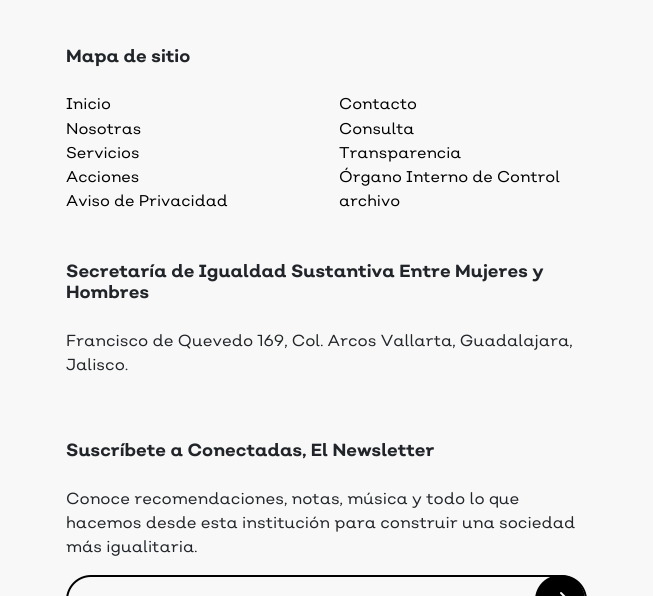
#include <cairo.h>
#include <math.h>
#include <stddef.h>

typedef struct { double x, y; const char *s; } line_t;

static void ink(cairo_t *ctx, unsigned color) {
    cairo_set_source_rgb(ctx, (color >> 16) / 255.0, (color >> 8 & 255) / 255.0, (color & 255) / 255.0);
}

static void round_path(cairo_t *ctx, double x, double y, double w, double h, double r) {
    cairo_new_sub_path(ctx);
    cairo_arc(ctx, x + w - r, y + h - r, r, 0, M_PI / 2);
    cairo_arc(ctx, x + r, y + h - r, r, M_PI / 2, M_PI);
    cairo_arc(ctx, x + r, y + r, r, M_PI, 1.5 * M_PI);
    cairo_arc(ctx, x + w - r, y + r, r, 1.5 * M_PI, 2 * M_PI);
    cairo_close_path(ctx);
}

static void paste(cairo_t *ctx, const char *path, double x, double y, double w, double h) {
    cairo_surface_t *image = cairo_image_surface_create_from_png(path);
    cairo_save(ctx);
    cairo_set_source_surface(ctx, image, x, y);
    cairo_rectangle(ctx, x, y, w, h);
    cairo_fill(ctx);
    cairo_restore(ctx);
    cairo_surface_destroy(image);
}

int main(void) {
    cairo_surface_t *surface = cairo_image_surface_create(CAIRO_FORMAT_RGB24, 653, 596);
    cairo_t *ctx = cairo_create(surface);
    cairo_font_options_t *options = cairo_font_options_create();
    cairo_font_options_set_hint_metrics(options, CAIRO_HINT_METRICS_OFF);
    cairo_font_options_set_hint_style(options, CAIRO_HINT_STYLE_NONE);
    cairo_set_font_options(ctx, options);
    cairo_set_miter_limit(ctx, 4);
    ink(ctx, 0xF8F8F8);
    cairo_paint(ctx);
    cairo_select_font_face(ctx, "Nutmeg", CAIRO_FONT_SLANT_NORMAL, CAIRO_FONT_WEIGHT_BOLD);
    cairo_set_font_size(ctx, 17.6);
    ink(ctx, 0x212529);
    cairo_move_to(ctx, 66, 62);
    cairo_show_text(ctx, "Mapa de sitio");
    cairo_select_font_face(ctx, "Nutmeg", CAIRO_FONT_SLANT_NORMAL, CAIRO_FONT_WEIGHT_NORMAL);
    cairo_set_font_size(ctx, 15.6);
    ink(ctx, 0x000000);
    {
        static const line_t items[] = {
            {66, 109, "Inicio"},
            {66, 134, "Nosotras"},
            {66, 158, "Servicios"},
            {66, 182, "Acciones"},
            {66, 206, "Aviso de Privacidad"},
            {339, 109, "Contacto"},
            {339, 134, "Consulta"},
            {339, 158, "Transparencia"},
            {339, 182, "Órgano Interno de Control"},
            {339, 206, "archivo"},
        };
        for (size_t i = 0; i < sizeof items / sizeof *items; i++) {
            cairo_move_to(ctx, items[i].x, items[i].y);
            cairo_show_text(ctx, items[i].s);
        }
    }
    cairo_select_font_face(ctx, "Nutmeg", CAIRO_FONT_SLANT_NORMAL, CAIRO_FONT_WEIGHT_BOLD);
    cairo_set_font_size(ctx, 17.6);
    ink(ctx, 0x212529);
    cairo_move_to(ctx, 66, 277);
    cairo_show_text(ctx, "Secretaría de Igualdad Sustantiva Entre Mujeres y");
    cairo_move_to(ctx, 66, 298);
    cairo_show_text(ctx, "Hombres");
    cairo_select_font_face(ctx, "Nutmeg", CAIRO_FONT_SLANT_NORMAL, CAIRO_FONT_WEIGHT_NORMAL);
    cairo_set_font_size(ctx, 16);
    cairo_move_to(ctx, 66, 346);
    cairo_show_text(ctx, "Francisco de Quevedo 169, Col. Arcos Vallarta, Guadalajara,");
    cairo_move_to(ctx, 66, 370);
    cairo_show_text(ctx, "Jalisco.");
    cairo_select_font_face(ctx, "Nutmeg", CAIRO_FONT_SLANT_NORMAL, CAIRO_FONT_WEIGHT_BOLD);
    cairo_set_font_size(ctx, 17.6);
    cairo_move_to(ctx, 66, 456);
    cairo_show_text(ctx, "Suscríbete a Conectadas, El Newsletter");
    cairo_select_font_face(ctx, "Nutmeg", CAIRO_FONT_SLANT_NORMAL, CAIRO_FONT_WEIGHT_NORMAL);
    cairo_set_font_size(ctx, 16);
    {
        static const line_t items[] = {
            {66, 504, "Conoce recomendaciones, notas, música y todo lo que"},
            {66, 528, "hacemos desde esta institución para construir una sociedad"},
            {66, 552, "más igualitaria."},
        };
        for (size_t i = 0; i < sizeof items / sizeof *items; i++) {
            cairo_move_to(ctx, items[i].x, items[i].y);
            cairo_show_text(ctx, items[i].s);
        }
    }
    round_path(ctx, 67, 576, 519, 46, 24);
    ink(ctx, 0x000000);
    cairo_stroke(ctx);
    round_path(ctx, 535, 575, 50, 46, 25);
    cairo_fill(ctx);
    paste(ctx, "media/1.png", 560, 592, 6, 4);
    cairo_surface_write_to_png(surface, "image.png");
    cairo_font_options_destroy(options);
    cairo_destroy(ctx);
    cairo_surface_destroy(surface);
    return 0;
}
